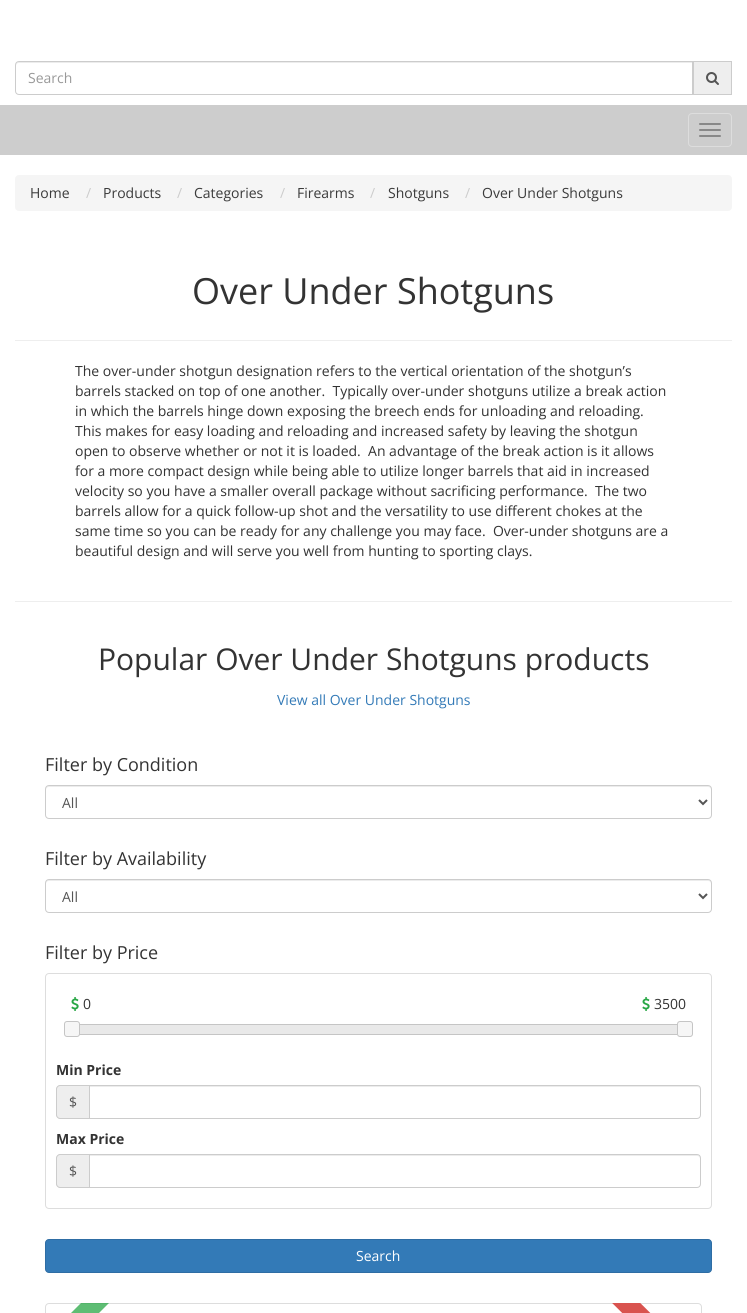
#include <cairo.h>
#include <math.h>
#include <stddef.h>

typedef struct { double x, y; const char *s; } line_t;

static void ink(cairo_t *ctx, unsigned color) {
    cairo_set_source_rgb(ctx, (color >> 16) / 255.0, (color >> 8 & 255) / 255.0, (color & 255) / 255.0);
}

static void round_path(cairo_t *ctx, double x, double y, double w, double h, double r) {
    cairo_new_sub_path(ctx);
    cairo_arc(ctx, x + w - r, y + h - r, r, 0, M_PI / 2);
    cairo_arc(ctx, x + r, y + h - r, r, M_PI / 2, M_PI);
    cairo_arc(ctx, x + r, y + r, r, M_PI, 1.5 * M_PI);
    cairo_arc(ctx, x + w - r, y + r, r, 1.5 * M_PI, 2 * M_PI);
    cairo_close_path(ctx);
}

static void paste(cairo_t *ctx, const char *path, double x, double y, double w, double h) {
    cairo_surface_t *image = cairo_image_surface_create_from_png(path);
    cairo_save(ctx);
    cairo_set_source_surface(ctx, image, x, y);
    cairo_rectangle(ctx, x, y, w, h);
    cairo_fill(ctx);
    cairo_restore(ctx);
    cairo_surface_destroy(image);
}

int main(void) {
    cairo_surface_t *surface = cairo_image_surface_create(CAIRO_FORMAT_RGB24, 747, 1313);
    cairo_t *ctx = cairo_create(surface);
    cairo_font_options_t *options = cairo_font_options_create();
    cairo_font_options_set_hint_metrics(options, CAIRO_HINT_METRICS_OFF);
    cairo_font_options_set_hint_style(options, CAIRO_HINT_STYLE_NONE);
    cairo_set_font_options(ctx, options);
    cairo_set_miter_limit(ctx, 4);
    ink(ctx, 0xFFFFFF);
    cairo_paint(ctx);
    ink(ctx, 0xECECEC);
    cairo_new_path(ctx);
    cairo_move_to(ctx, 19, 63);
    cairo_line_to(ctx, 692, 63);
    cairo_line_to(ctx, 692, 62);
    cairo_line_to(ctx, 19, 62);
    cairo_curve_to(ctx, 17, 62, 16, 63, 16, 65);
    cairo_line_to(ctx, 16, 66);
    cairo_curve_to(ctx, 16, 64, 17, 63, 19, 63);
    cairo_close_path(ctx);
    cairo_fill(ctx);
    cairo_new_path(ctx);
    cairo_move_to(ctx, 19, 61.5);
    cairo_line_to(ctx, 692.5, 61.5);
    cairo_line_to(ctx, 692.5, 94.5);
    cairo_line_to(ctx, 19, 94.5);
    cairo_curve_to(ctx, 17, 94.5, 15.5, 93, 15.5, 91);
    cairo_line_to(ctx, 15.5, 65);
    cairo_curve_to(ctx, 15.5, 63, 17, 61.5, 19, 61.5);
    cairo_close_path(ctx);
    ink(ctx, 0xCCCCCC);
    cairo_set_line_width(ctx, 1);
    cairo_stroke(ctx);
    cairo_select_font_face(ctx, "Open Sans", CAIRO_FONT_SLANT_NORMAL, CAIRO_FONT_WEIGHT_NORMAL);
    cairo_set_font_size(ctx, 14);
    ink(ctx, 0x999999);
    cairo_move_to(ctx, 28, 83);
    cairo_show_text(ctx, "Search");
    ink(ctx, 0xEEEEEE);
    cairo_rectangle(ctx, 693.5, 61.5, 38, 33);
    cairo_fill_preserve(ctx);
    ink(ctx, 0xCCCCCC);
    cairo_stroke(ctx);
    paste(ctx, "media/1.png", 706, 72, 13, 13);
    ink(ctx, 0xCDCDCD);
    cairo_rectangle(ctx, 0, 105, 747, 50);
    cairo_fill(ctx);
    round_path(ctx, 688.5, 113.5, 43, 33, 3.5);
    ink(ctx, 0xDDDDDD);
    cairo_stroke(ctx);
    ink(ctx, 0x888888);
    round_path(ctx, 699, 123, 22, 2, 1);
    cairo_fill(ctx);
    round_path(ctx, 699, 129, 22, 2, 1);
    cairo_fill(ctx);
    round_path(ctx, 699, 135, 22, 2, 1);
    cairo_fill(ctx);
    ink(ctx, 0xF5F5F5);
    round_path(ctx, 15, 175, 717, 36, 4);
    cairo_fill(ctx);
    ink(ctx, 0x3A3A3A);
    cairo_move_to(ctx, 30, 198);
    cairo_show_text(ctx, "Home");
    ink(ctx, 0xCCCCCC);
    cairo_move_to(ctx, 86, 198);
    cairo_show_text(ctx, "/");
    ink(ctx, 0x3A3A3A);
    cairo_move_to(ctx, 103, 198);
    cairo_show_text(ctx, "Products");
    ink(ctx, 0xCCCCCC);
    cairo_move_to(ctx, 177, 198);
    cairo_show_text(ctx, "/");
    ink(ctx, 0x3A3A3A);
    cairo_move_to(ctx, 194, 198);
    cairo_show_text(ctx, "Categories");
    ink(ctx, 0xCCCCCC);
    cairo_move_to(ctx, 280, 198);
    cairo_show_text(ctx, "/");
    ink(ctx, 0x3A3A3A);
    cairo_move_to(ctx, 297, 198);
    cairo_show_text(ctx, "Firearms");
    ink(ctx, 0xCCCCCC);
    cairo_move_to(ctx, 370, 198);
    cairo_show_text(ctx, "/");
    ink(ctx, 0x3A3A3A);
    cairo_move_to(ctx, 388, 198);
    cairo_show_text(ctx, "Shotguns");
    ink(ctx, 0xCCCCCC);
    cairo_move_to(ctx, 465, 198);
    cairo_show_text(ctx, "/");
    ink(ctx, 0x3A3A3A);
    cairo_move_to(ctx, 482, 198);
    cairo_show_text(ctx, "Over Under Shotguns");
    cairo_set_font_size(ctx, 36);
    ink(ctx, 0x333333);
    cairo_move_to(ctx, 192, 304);
    cairo_show_text(ctx, "Over Under Shotguns");
    ink(ctx, 0xEEEEEE);
    cairo_rectangle(ctx, 15, 340, 717, 1);
    cairo_fill(ctx);
    cairo_set_font_size(ctx, 14);
    ink(ctx, 0x333333);
    {
        static const line_t items[] = {
            {75, 376, "The over-under shotgun designation refers to the vertical orientation of the shotgun’s"},
            {75, 396, "barrels stacked on top of one another.  Typically over-under shotguns utilize a break action"},
            {75, 416, "in which the barrels hinge down exposing the breech ends for unloading and reloading."},
            {75, 436, "This makes for easy loading and reloading and increased safety by leaving the shotgun"},
            {75, 456, "open to observe whether or not it is loaded.  An advantage of the break action is it allows"},
            {75, 476, "for a more compact design while being able to utilize longer barrels that aid in increased"},
            {75, 496, "velocity so you have a smaller overall package without sacrificing performance.  The two"},
            {75, 516, "barrels allow for a quick follow-up shot and the versatility to use different chokes at the"},
            {75, 536, "same time so you can be ready for any challenge you may face.  Over-under shotguns are a"},
            {75, 556, "beautiful design and will serve you well from hunting to sporting clays."},
        };
        for (size_t i = 0; i < sizeof items / sizeof *items; i++) {
            cairo_move_to(ctx, items[i].x, items[i].y);
            cairo_show_text(ctx, items[i].s);
        }
    }
    ink(ctx, 0xEEEEEE);
    cairo_rectangle(ctx, 15, 601, 717, 1);
    cairo_fill(ctx);
    cairo_set_font_size(ctx, 30);
    ink(ctx, 0x333333);
    cairo_move_to(ctx, 98, 670);
    cairo_show_text(ctx, "Popular Over Under Shotguns products");
    cairo_set_font_size(ctx, 14);
    ink(ctx, 0x337AB7);
    cairo_move_to(ctx, 277, 705);
    cairo_show_text(ctx, "View all Over Under Shotguns");
    cairo_set_font_size(ctx, 18);
    ink(ctx, 0x333333);
    cairo_move_to(ctx, 45, 771);
    cairo_show_text(ctx, "Filter by Condition");
    ink(ctx, 0xECECEC);
    cairo_new_path(ctx);
    cairo_move_to(ctx, 49, 787);
    cairo_line_to(ctx, 708, 787);
    cairo_curve_to(ctx, 710, 787, 711, 788, 711, 790);
    cairo_line_to(ctx, 711, 789);
    cairo_curve_to(ctx, 711, 787, 710, 786, 708, 786);
    cairo_line_to(ctx, 49, 786);
    cairo_curve_to(ctx, 47, 786, 46, 787, 46, 789);
    cairo_line_to(ctx, 46, 790);
    cairo_curve_to(ctx, 46, 788, 47, 787, 49, 787);
    cairo_close_path(ctx);
    cairo_fill(ctx);
    round_path(ctx, 45.5, 785.5, 666, 33, 3.5);
    ink(ctx, 0xCCCCCC);
    cairo_stroke(ctx);
    cairo_new_path(ctx);
    cairo_move_to(ctx, 699, 800);
    cairo_line_to(ctx, 703, 804);
    cairo_line_to(ctx, 707, 800);
    ink(ctx, 0x555555);
    cairo_set_line_width(ctx, 2);
    cairo_stroke(ctx);
    cairo_set_font_size(ctx, 14);
    cairo_move_to(ctx, 62, 808);
    cairo_show_text(ctx, "All");
    cairo_set_font_size(ctx, 18);
    ink(ctx, 0x333333);
    cairo_move_to(ctx, 45, 865);
    cairo_show_text(ctx, "Filter by Availability");
    ink(ctx, 0xECECEC);
    cairo_new_path(ctx);
    cairo_move_to(ctx, 49, 881);
    cairo_line_to(ctx, 708, 881);
    cairo_curve_to(ctx, 710, 881, 711, 882, 711, 884);
    cairo_line_to(ctx, 711, 883);
    cairo_curve_to(ctx, 711, 881, 710, 880, 708, 880);
    cairo_line_to(ctx, 49, 880);
    cairo_curve_to(ctx, 47, 880, 46, 881, 46, 883);
    cairo_line_to(ctx, 46, 884);
    cairo_curve_to(ctx, 46, 882, 47, 881, 49, 881);
    cairo_close_path(ctx);
    cairo_fill(ctx);
    round_path(ctx, 45.5, 879.5, 666, 33, 3.5);
    ink(ctx, 0xCCCCCC);
    cairo_set_line_width(ctx, 1);
    cairo_stroke(ctx);
    cairo_new_path(ctx);
    cairo_move_to(ctx, 699, 894);
    cairo_line_to(ctx, 703, 898);
    cairo_line_to(ctx, 707, 894);
    ink(ctx, 0x555555);
    cairo_set_line_width(ctx, 2);
    cairo_stroke(ctx);
    cairo_set_font_size(ctx, 14);
    cairo_move_to(ctx, 62, 902);
    cairo_show_text(ctx, "All");
    cairo_set_font_size(ctx, 18);
    ink(ctx, 0x333333);
    cairo_move_to(ctx, 45, 959);
    cairo_show_text(ctx, "Filter by Price");
    round_path(ctx, 45.5, 973.5, 666, 235, 3.5);
    ink(ctx, 0xDDDDDD);
    cairo_set_line_width(ctx, 1);
    cairo_stroke(ctx);
    paste(ctx, "media/2.png", 71, 997, 8, 14);
    cairo_set_font_size(ctx, 14);
    ink(ctx, 0x333333);
    cairo_move_to(ctx, 83, 1009);
    cairo_show_text(ctx, "0");
    paste(ctx, "media/2.png", 642, 997, 8, 14);
    cairo_move_to(ctx, 654, 1009);
    cairo_show_text(ctx, "3500");
    cairo_rectangle(ctx, 71.5, 1024.5, 614, 10);
    ink(ctx, 0xC5C5C5);
    cairo_stroke(ctx);
    ink(ctx, 0xF6F6F6);
    round_path(ctx, 64.5, 1021.5, 15, 15, 2.5);
    cairo_fill_preserve(ctx);
    ink(ctx, 0xC5C5C5);
    cairo_stroke(ctx);
    ink(ctx, 0xE9E9E9);
    cairo_rectangle(ctx, 80, 1025, 597, 9);
    cairo_fill(ctx);
    ink(ctx, 0xF6F6F6);
    round_path(ctx, 677.5, 1021.5, 15, 15, 2.5);
    cairo_fill_preserve(ctx);
    ink(ctx, 0xC5C5C5);
    cairo_stroke(ctx);
    cairo_select_font_face(ctx, "Open Sans", CAIRO_FONT_SLANT_NORMAL, CAIRO_FONT_WEIGHT_BOLD);
    ink(ctx, 0x333333);
    cairo_move_to(ctx, 56, 1075);
    cairo_show_text(ctx, "Min Price");
    ink(ctx, 0xEEEEEE);
    cairo_new_path(ctx);
    cairo_move_to(ctx, 60, 1085);
    cairo_line_to(ctx, 89, 1085);
    cairo_line_to(ctx, 89, 1119);
    cairo_line_to(ctx, 60, 1119);
    cairo_curve_to(ctx, 58, 1119, 56, 1117, 56, 1115);
    cairo_line_to(ctx, 56, 1089);
    cairo_curve_to(ctx, 56, 1087, 58, 1085, 60, 1085);
    cairo_close_path(ctx);
    cairo_fill(ctx);
    ink(ctx, 0xCCCCCC);
    cairo_set_fill_rule(ctx, CAIRO_FILL_RULE_EVEN_ODD);
    cairo_new_path(ctx);
    cairo_move_to(ctx, 60, 1085);
    cairo_line_to(ctx, 89, 1085);
    cairo_line_to(ctx, 89, 1119);
    cairo_line_to(ctx, 60, 1119);
    cairo_curve_to(ctx, 58, 1119, 56, 1117, 56, 1115);
    cairo_line_to(ctx, 56, 1089);
    cairo_curve_to(ctx, 56, 1087, 58, 1085, 60, 1085);
    cairo_close_path(ctx);
    cairo_move_to(ctx, 60, 1086);
    cairo_line_to(ctx, 89, 1086);
    cairo_line_to(ctx, 89, 1118);
    cairo_line_to(ctx, 60, 1118);
    cairo_curve_to(ctx, 58.5, 1118, 57, 1116.5, 57, 1115);
    cairo_line_to(ctx, 57, 1089);
    cairo_curve_to(ctx, 57, 1087.5, 58.5, 1086, 60, 1086);
    cairo_close_path(ctx);
    cairo_fill(ctx);
    cairo_select_font_face(ctx, "Open Sans", CAIRO_FONT_SLANT_NORMAL, CAIRO_FONT_WEIGHT_NORMAL);
    ink(ctx, 0x555555);
    cairo_move_to(ctx, 69, 1107);
    cairo_show_text(ctx, "$");
    ink(ctx, 0xECECEC);
    cairo_set_fill_rule(ctx, CAIRO_FILL_RULE_WINDING);
    cairo_new_path(ctx);
    cairo_move_to(ctx, 90, 1087);
    cairo_line_to(ctx, 697, 1087);
    cairo_curve_to(ctx, 699, 1087, 700, 1088, 700, 1090);
    cairo_line_to(ctx, 700, 1089);
    cairo_curve_to(ctx, 700, 1087, 699, 1086, 697, 1086);
    cairo_line_to(ctx, 90, 1086);
    cairo_close_path(ctx);
    cairo_fill(ctx);
    cairo_new_path(ctx);
    cairo_move_to(ctx, 89.5, 1085.5);
    cairo_line_to(ctx, 697, 1085.5);
    cairo_curve_to(ctx, 699, 1085.5, 700.5, 1087, 700.5, 1089);
    cairo_line_to(ctx, 700.5, 1115);
    cairo_curve_to(ctx, 700.5, 1117, 699, 1118.5, 697, 1118.5);
    cairo_line_to(ctx, 89.5, 1118.5);
    cairo_close_path(ctx);
    ink(ctx, 0xCCCCCC);
    cairo_stroke(ctx);
    cairo_select_font_face(ctx, "Open Sans", CAIRO_FONT_SLANT_NORMAL, CAIRO_FONT_WEIGHT_BOLD);
    ink(ctx, 0x333333);
    cairo_move_to(ctx, 56, 1144);
    cairo_show_text(ctx, "Max Price");
    ink(ctx, 0xEEEEEE);
    cairo_new_path(ctx);
    cairo_move_to(ctx, 60, 1154);
    cairo_line_to(ctx, 89, 1154);
    cairo_line_to(ctx, 89, 1188);
    cairo_line_to(ctx, 60, 1188);
    cairo_curve_to(ctx, 58, 1188, 56, 1186, 56, 1184);
    cairo_line_to(ctx, 56, 1158);
    cairo_curve_to(ctx, 56, 1156, 58, 1154, 60, 1154);
    cairo_close_path(ctx);
    cairo_fill(ctx);
    ink(ctx, 0xCCCCCC);
    cairo_set_fill_rule(ctx, CAIRO_FILL_RULE_EVEN_ODD);
    cairo_new_path(ctx);
    cairo_move_to(ctx, 60, 1154);
    cairo_line_to(ctx, 89, 1154);
    cairo_line_to(ctx, 89, 1188);
    cairo_line_to(ctx, 60, 1188);
    cairo_curve_to(ctx, 58, 1188, 56, 1186, 56, 1184);
    cairo_line_to(ctx, 56, 1158);
    cairo_curve_to(ctx, 56, 1156, 58, 1154, 60, 1154);
    cairo_close_path(ctx);
    cairo_move_to(ctx, 60, 1155);
    cairo_line_to(ctx, 89, 1155);
    cairo_line_to(ctx, 89, 1187);
    cairo_line_to(ctx, 60, 1187);
    cairo_curve_to(ctx, 58.5, 1187, 57, 1185.5, 57, 1184);
    cairo_line_to(ctx, 57, 1158);
    cairo_curve_to(ctx, 57, 1156.5, 58.5, 1155, 60, 1155);
    cairo_close_path(ctx);
    cairo_fill(ctx);
    cairo_select_font_face(ctx, "Open Sans", CAIRO_FONT_SLANT_NORMAL, CAIRO_FONT_WEIGHT_NORMAL);
    ink(ctx, 0x555555);
    cairo_move_to(ctx, 69, 1176);
    cairo_show_text(ctx, "$");
    ink(ctx, 0xECECEC);
    cairo_set_fill_rule(ctx, CAIRO_FILL_RULE_WINDING);
    cairo_new_path(ctx);
    cairo_move_to(ctx, 90, 1156);
    cairo_line_to(ctx, 697, 1156);
    cairo_curve_to(ctx, 699, 1156, 700, 1157, 700, 1159);
    cairo_line_to(ctx, 700, 1158);
    cairo_curve_to(ctx, 700, 1156, 699, 1155, 697, 1155);
    cairo_line_to(ctx, 90, 1155);
    cairo_close_path(ctx);
    cairo_fill(ctx);
    cairo_new_path(ctx);
    cairo_move_to(ctx, 89.5, 1154.5);
    cairo_line_to(ctx, 697, 1154.5);
    cairo_curve_to(ctx, 699, 1154.5, 700.5, 1156, 700.5, 1158);
    cairo_line_to(ctx, 700.5, 1184);
    cairo_curve_to(ctx, 700.5, 1186, 699, 1187.5, 697, 1187.5);
    cairo_line_to(ctx, 89.5, 1187.5);
    cairo_close_path(ctx);
    ink(ctx, 0xCCCCCC);
    cairo_stroke(ctx);
    ink(ctx, 0x337AB7);
    round_path(ctx, 45.5, 1239.5, 666, 33, 3.5);
    cairo_fill_preserve(ctx);
    ink(ctx, 0x2E6DA4);
    cairo_stroke(ctx);
    ink(ctx, 0xFFFFFF);
    cairo_move_to(ctx, 356, 1261);
    cairo_show_text(ctx, "Search");
    round_path(ctx, 45.5, 1303.5, 656, 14, 3.5);
    ink(ctx, 0xDDDDDD);
    cairo_stroke(ctx);
    cairo_save(ctx);
    cairo_rectangle(ctx, 45, 1303, 65, 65);
    cairo_clip(ctx);
    cairo_set_source_rgba(ctx, 0.157, 0.655, 0.271, 0.75);
    cairo_new_path(ctx);
    cairo_move_to(ctx, 28, 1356);
    cairo_line_to(ctx, 99, 1285);
    cairo_line_to(ctx, 113, 1299);
    cairo_line_to(ctx, 42, 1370);
    cairo_close_path(ctx);
    cairo_fill(ctx);
    cairo_restore(ctx);
    cairo_save(ctx);
    cairo_rectangle(ctx, 582, 1303, 120, 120);
    cairo_clip(ctx);
    ink(ctx, 0xD9534F);
    cairo_new_path(ctx);
    cairo_move_to(ctx, 613, 1276);
    cairo_line_to(ctx, 730, 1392);
    cairo_line_to(ctx, 716, 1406);
    cairo_line_to(ctx, 599, 1290);
    cairo_close_path(ctx);
    cairo_fill(ctx);
    cairo_restore(ctx);
    cairo_surface_write_to_png(surface, "image.png");
    cairo_font_options_destroy(options);
    cairo_destroy(ctx);
    cairo_surface_destroy(surface);
    return 0;
}
